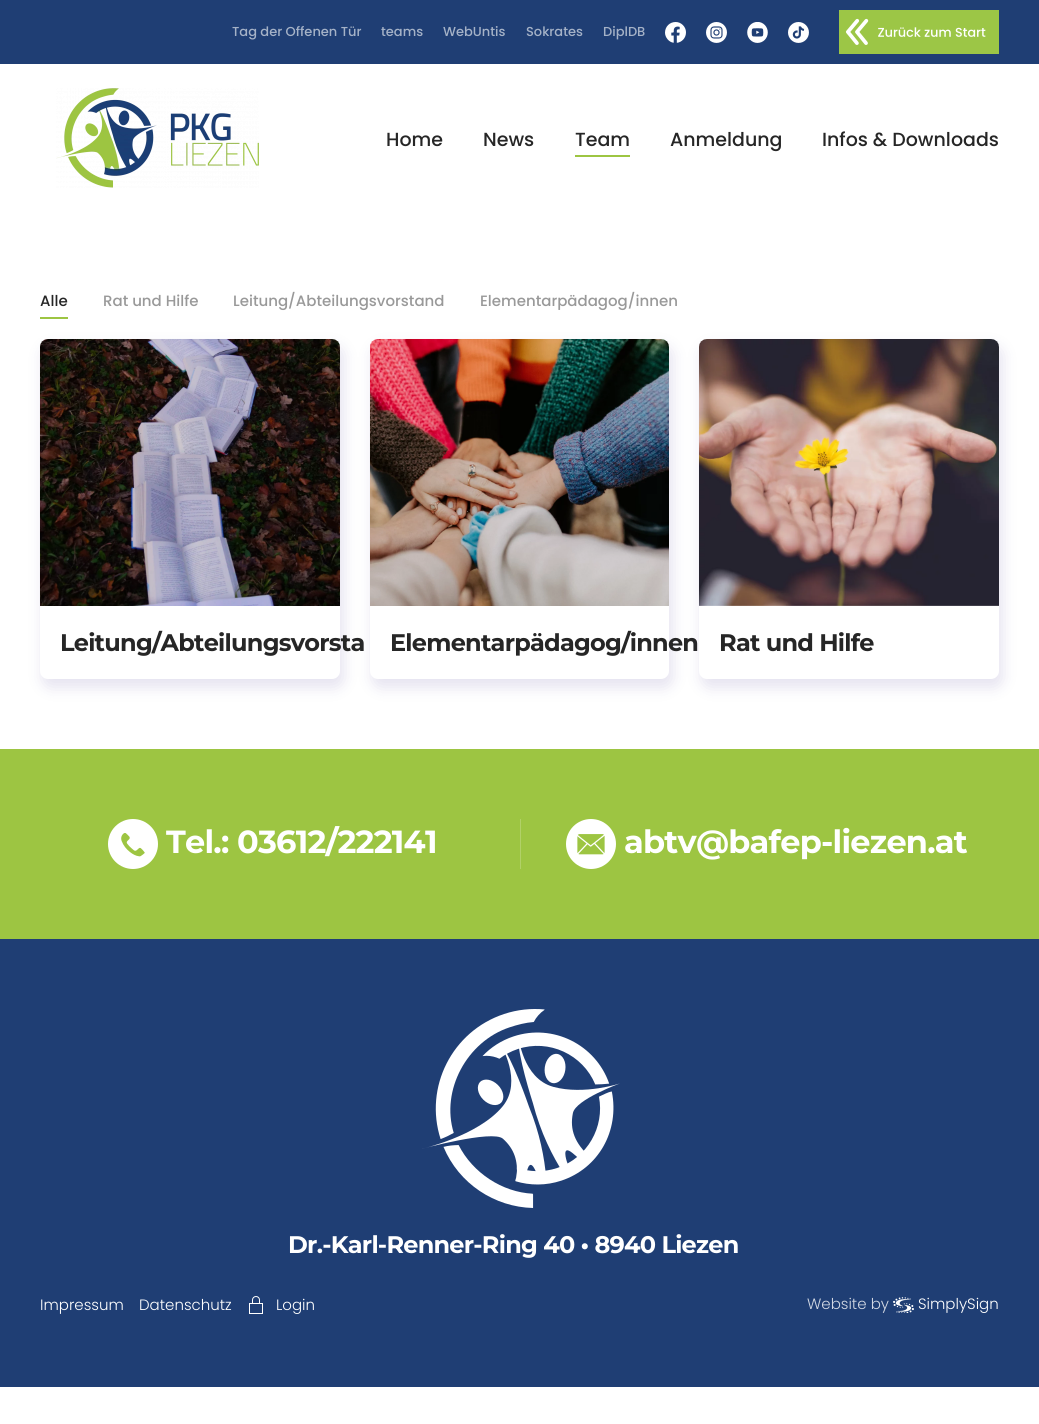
#include <cairo.h>
#include <math.h>
#include <stddef.h>

typedef struct { double x, y; const char *s; } line_t;

static void ink(cairo_t *ctx, unsigned color) {
    cairo_set_source_rgb(ctx, (color >> 16) / 255.0, (color >> 8 & 255) / 255.0, (color & 255) / 255.0);
}

static void write_spaced(cairo_t *ctx, double x, double y, const char *s, double letter, double word) {
    cairo_move_to(ctx, x, y);
    while (*s) {
        char ch[5] = {0};
        int n = 0;
        do ch[n++] = *s++; while ((*s & 0xC0) == 0x80);
        cairo_show_text(ctx, ch);
        cairo_rel_move_to(ctx, letter + word * (*ch == ' '), 0);
    }
}

static void round_path(cairo_t *ctx, double x, double y, double w, double h, double r) {
    cairo_new_sub_path(ctx);
    cairo_arc(ctx, x + w - r, y + h - r, r, 0, M_PI / 2);
    cairo_arc(ctx, x + r, y + h - r, r, M_PI / 2, M_PI);
    cairo_arc(ctx, x + r, y + r, r, M_PI, 1.5 * M_PI);
    cairo_arc(ctx, x + w - r, y + r, r, 1.5 * M_PI, 2 * M_PI);
    cairo_close_path(ctx);
}

static void blur_box(cairo_t *ctx, double x, double y, double w, double h, double r, double blur, double alpha) {
    cairo_push_group_with_content(ctx, CAIRO_CONTENT_ALPHA);
    cairo_set_operator(ctx, CAIRO_OPERATOR_SOURCE);
    for (int i = 15; i >= -15 && fmin(w, h) + blur * i / 3 > 0; i -= 2) {
        double e = blur * i / 6;
        cairo_set_source_rgba(ctx, 0, 0, 0, alpha * erfc((i - 1) / 8.5) / 2);
        round_path(ctx, x - e, y - e, w + 2 * e, h + 2 * e, fmax(0, fmin(r + e + blur * .6, fmin(w, h) / 2 + e)));
        cairo_fill(ctx);
    }
    cairo_pattern_t *soft = cairo_pop_group(ctx);
    cairo_mask(ctx, soft);
    cairo_pattern_destroy(soft);
}

static void paste(cairo_t *ctx, const char *path, double x, double y, double w, double h) {
    cairo_surface_t *image = cairo_image_surface_create_from_png(path);
    cairo_save(ctx);
    cairo_set_source_surface(ctx, image, x, y);
    cairo_rectangle(ctx, x, y, w, h);
    cairo_fill(ctx);
    cairo_restore(ctx);
    cairo_surface_destroy(image);
}

int main(void) {
    cairo_surface_t *surface = cairo_image_surface_create(CAIRO_FORMAT_RGB24, 1039, 1424);
    cairo_t *ctx = cairo_create(surface);
    cairo_font_options_t *options = cairo_font_options_create();
    cairo_font_options_set_hint_metrics(options, CAIRO_HINT_METRICS_OFF);
    cairo_font_options_set_hint_style(options, CAIRO_HINT_STYLE_NONE);
    cairo_set_font_options(ctx, options);
    cairo_set_miter_limit(ctx, 4);
    ink(ctx, 0xFFFFFF);
    cairo_paint(ctx);
    ink(ctx, 0x1F3E74);
    cairo_rectangle(ctx, 0, 0, 1039, 64);
    cairo_fill(ctx);
    cairo_select_font_face(ctx, "Poppins Medium", CAIRO_FONT_SLANT_NORMAL, CAIRO_FONT_WEIGHT_NORMAL);
    cairo_set_font_size(ctx, 13);
    ink(ctx, 0xA5B2C7);
    {
        static const line_t items[] = {
            {232, 36, "Tag der Offenen Tür"},
            {381, 36, "teams"},
            {443, 36, "WebUntis"},
            {526, 36, "Sokrates"},
            {603, 36, "DiplDB"},
        };
        for (size_t i = 0; i < sizeof items / sizeof *items; i++) {
            cairo_move_to(ctx, items[i].x, items[i].y);
            cairo_show_text(ctx, items[i].s);
        }
    }
    paste(ctx, "media/1.png", 665, 22, 21, 21);
    paste(ctx, "media/2.png", 706, 22, 21, 21);
    paste(ctx, "media/3.png", 747, 22, 21, 21);
    paste(ctx, "media/4.png", 788, 22, 21, 21);
    paste(ctx, "media/5.png", 839, 10, 160, 44);
    paste(ctx, "media/6.png", 56, 88, 203, 100);
    cairo_set_font_size(ctx, 19);
    ink(ctx, 0x262626);
    {
        static const line_t items[] = {
            {386, 146, "Home"},
            {483, 146, "News"},
            {575, 146, "Team"},
        };
        for (size_t i = 0; i < sizeof items / sizeof *items; i++) {
            cairo_move_to(ctx, items[i].x, items[i].y);
            cairo_show_text(ctx, items[i].s);
        }
    }
    ink(ctx, 0x9DC542);
    cairo_rectangle(ctx, 575, 155, 55, 2);
    cairo_fill(ctx);
    ink(ctx, 0x262626);
    cairo_move_to(ctx, 670, 146);
    cairo_show_text(ctx, "Anmeldung");
    cairo_move_to(ctx, 822, 146);
    cairo_show_text(ctx, "Infos & Downloads");
    ink(ctx, 0x9DC542);
    cairo_rectangle(ctx, 40, 317, 28, 2);
    cairo_fill(ctx);
    cairo_set_font_size(ctx, 15);
    ink(ctx, 0x262626);
    cairo_move_to(ctx, 40, 306);
    cairo_show_text(ctx, "Alle");
    ink(ctx, 0x999999);
    {
        static const line_t items[] = {
            {103, 306, "Rat und Hilfe"},
            {233, 306, "Leitung/Abteilungsvorstand"},
            {480, 306, "Elementarpädagog/innen"},
        };
        for (size_t i = 0; i < sizeof items / sizeof *items; i++) {
            cairo_move_to(ctx, items[i].x, items[i].y);
            cairo_show_text(ctx, items[i].s);
        }
    }
    ink(ctx, 0x170076);
    blur_box(ctx, 43, 347, 300, 340, 8, 8, 0.12);
    ink(ctx, 0xFFFFFF);
    round_path(ctx, 40, 339, 300, 340, 8);
    cairo_fill(ctx);
    paste(ctx, "media/7.png", 40, 339, 300, 267);
    cairo_select_font_face(ctx, "Montserrat Thin", CAIRO_FONT_SLANT_NORMAL, CAIRO_FONT_WEIGHT_NORMAL);
    cairo_set_font_size(ctx, 24);
    ink(ctx, 0x262626);
    write_spaced(ctx, 60, 651, "Leitung/Abteilungsvorsta", -0.75, 0);
    ink(ctx, 0x170076);
    blur_box(ctx, 373, 347, 299, 340, 8, 8, 0.12);
    ink(ctx, 0xFFFFFF);
    round_path(ctx, 370, 339, 299, 340, 8);
    cairo_fill(ctx);
    paste(ctx, "media/8.png", 370, 339, 299, 267);
    ink(ctx, 0x262626);
    write_spaced(ctx, 390, 651, "Elementarpädagog/innen", -0.75, 0);
    ink(ctx, 0x170076);
    blur_box(ctx, 702, 347, 300, 340, 8, 8, 0.12);
    ink(ctx, 0xFFFFFF);
    round_path(ctx, 699, 339, 300, 340, 8);
    cairo_fill(ctx);
    paste(ctx, "media/9.png", 699, 339, 300, 267);
    ink(ctx, 0x262626);
    write_spaced(ctx, 719, 651, "Rat und Hilfe", -0.75, 0);
    ink(ctx, 0x9DC542);
    cairo_rectangle(ctx, 0, 749, 1039, 190);
    cairo_fill(ctx);
    paste(ctx, "media/10.png", 108, 819, 50, 50);
    cairo_set_font_size(ctx, 32);
    ink(ctx, 0xFFFFFF);
    write_spaced(ctx, 166, 853, "Tel.: 03612/222141", -0.75, 0);
    ink(ctx, 0xB1D168);
    cairo_rectangle(ctx, 520, 819, 1, 50);
    cairo_fill(ctx);
    paste(ctx, "media/11.png", 566, 819, 50, 50);
    ink(ctx, 0xFFFFFF);
    write_spaced(ctx, 624, 853, "abtv@bafep-liezen.at", -0.75, 0);
    ink(ctx, 0x1F3E74);
    cairo_rectangle(ctx, 0, 939, 1039, 448);
    cairo_fill(ctx);
    paste(ctx, "media/12.png", 422, 1009, 198, 199);
    cairo_set_font_size(ctx, 24);
    ink(ctx, 0xFFFFFF);
    write_spaced(ctx, 288, 1253, "Dr.-Karl-Renner-Ring 40 • 8940 Liezen", -0.75, 0);
    cairo_select_font_face(ctx, "Poppins Light", CAIRO_FONT_SLANT_NORMAL, CAIRO_FONT_WEIGHT_NORMAL);
    cairo_set_font_size(ctx, 15);
    cairo_move_to(ctx, 40, 1310);
    cairo_show_text(ctx, "Impressum");
    cairo_move_to(ctx, 139, 1310);
    cairo_show_text(ctx, "Datenschutz");
    paste(ctx, "media/13.png", 249, 1296, 14, 18);
    cairo_move_to(ctx, 276, 1310);
    cairo_show_text(ctx, "Login");
    ink(ctx, 0xD2D8E3);
    cairo_move_to(ctx, 807, 1309);
    cairo_show_text(ctx, "Website by");
    paste(ctx, "media/14.png", 893, 1297, 21, 16);
    ink(ctx, 0xFFFFFF);
    cairo_move_to(ctx, 918, 1309);
    cairo_show_text(ctx, "SimplySign");
    cairo_surface_write_to_png(surface, "image.png");
    cairo_font_options_destroy(options);
    cairo_destroy(ctx);
    cairo_surface_destroy(surface);
    return 0;
}
